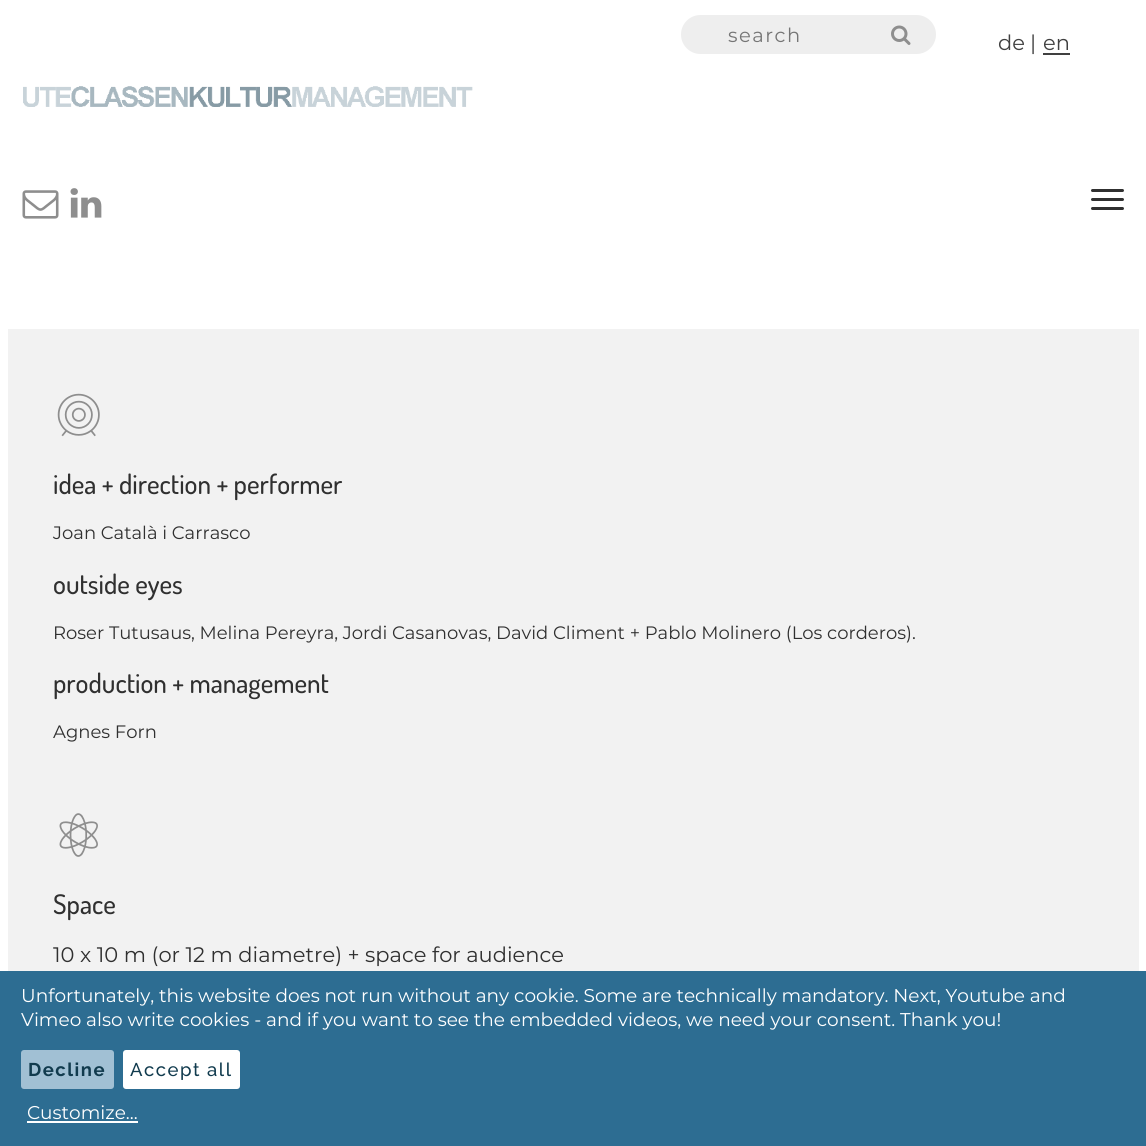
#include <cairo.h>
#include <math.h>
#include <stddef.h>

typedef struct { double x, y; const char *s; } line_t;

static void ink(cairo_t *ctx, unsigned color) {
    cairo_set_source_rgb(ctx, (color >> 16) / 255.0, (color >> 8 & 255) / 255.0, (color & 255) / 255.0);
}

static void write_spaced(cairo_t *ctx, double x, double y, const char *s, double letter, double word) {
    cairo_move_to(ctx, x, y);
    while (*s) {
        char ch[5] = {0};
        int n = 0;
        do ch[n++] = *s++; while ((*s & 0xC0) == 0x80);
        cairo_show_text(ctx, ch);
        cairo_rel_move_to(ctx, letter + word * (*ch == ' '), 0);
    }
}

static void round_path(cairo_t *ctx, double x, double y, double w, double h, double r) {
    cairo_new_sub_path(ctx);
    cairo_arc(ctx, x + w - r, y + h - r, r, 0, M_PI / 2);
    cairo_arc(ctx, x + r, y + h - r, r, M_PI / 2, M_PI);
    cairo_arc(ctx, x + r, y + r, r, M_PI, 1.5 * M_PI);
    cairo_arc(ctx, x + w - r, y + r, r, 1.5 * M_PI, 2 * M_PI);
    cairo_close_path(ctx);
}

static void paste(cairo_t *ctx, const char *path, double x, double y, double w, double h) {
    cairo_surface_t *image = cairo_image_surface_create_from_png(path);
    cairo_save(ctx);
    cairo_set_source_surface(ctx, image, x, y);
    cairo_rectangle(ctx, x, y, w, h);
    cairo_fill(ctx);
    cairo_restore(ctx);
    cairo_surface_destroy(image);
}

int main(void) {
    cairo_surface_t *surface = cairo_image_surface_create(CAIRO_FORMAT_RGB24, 1146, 1146);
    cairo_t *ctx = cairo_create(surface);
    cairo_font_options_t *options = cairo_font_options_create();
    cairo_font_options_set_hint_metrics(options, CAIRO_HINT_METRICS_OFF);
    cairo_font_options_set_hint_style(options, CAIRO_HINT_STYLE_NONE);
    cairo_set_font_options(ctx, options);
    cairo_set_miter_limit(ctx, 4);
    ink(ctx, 0xFFFFFF);
    cairo_paint(ctx);
    ink(ctx, 0xEEEEEE);
    round_path(ctx, 681, 15, 255, 39, 19.5);
    cairo_fill(ctx);
    cairo_select_font_face(ctx, "Montserrat", CAIRO_FONT_SLANT_NORMAL, CAIRO_FONT_WEIGHT_NORMAL);
    cairo_set_font_size(ctx, 19.5);
    ink(ctx, 0x757575);
    write_spaced(ctx, 728, 42, "search", 1.5, 0);
    paste(ctx, "media/1.png", 891, 25, 20, 20);
    cairo_set_font_size(ctx, 21);
    ink(ctx, 0x404040);
    {
        static const line_t items[] = {
            {998, 50, "de"},
            {1030, 50, "|"},
            {1043, 50, "en"},
        };
        for (size_t i = 0; i < sizeof items / sizeof *items; i++) {
            cairo_move_to(ctx, items[i].x, items[i].y);
            cairo_show_text(ctx, items[i].s);
        }
    }
    cairo_rectangle(ctx, 1043, 53, 27, 2);
    cairo_fill(ctx);
    paste(ctx, "media/2.png", 23, 86, 450, 21);
    paste(ctx, "media/3.png", 22, 190, 37, 29);
    paste(ctx, "media/4.png", 70, 188, 32, 30);
    ink(ctx, 0x303030);
    round_path(ctx, 1091, 189, 33, 3, 1.5);
    cairo_fill(ctx);
    round_path(ctx, 1091, 198, 33, 3, 1.5);
    cairo_fill(ctx);
    round_path(ctx, 1091, 207, 33, 3, 1.5);
    cairo_fill(ctx);
    ink(ctx, 0xF2F2F2);
    cairo_rectangle(ctx, 8, 329, 1131, 642);
    cairo_fill(ctx);
    paste(ctx, "media/5.png", 57, 393, 43, 44);
    cairo_select_font_face(ctx, "Dosis Medium", CAIRO_FONT_SLANT_NORMAL, CAIRO_FONT_WEIGHT_NORMAL);
    cairo_set_font_size(ctx, 27);
    ink(ctx, 0x303030);
    cairo_move_to(ctx, 53, 494);
    cairo_show_text(ctx, "idea + direction + performer");
    cairo_select_font_face(ctx, "Montserrat", CAIRO_FONT_SLANT_NORMAL, CAIRO_FONT_WEIGHT_NORMAL);
    cairo_set_font_size(ctx, 18);
    cairo_move_to(ctx, 53, 539);
    cairo_show_text(ctx, "Joan Català i Carrasco");
    cairo_select_font_face(ctx, "Dosis Medium", CAIRO_FONT_SLANT_NORMAL, CAIRO_FONT_WEIGHT_NORMAL);
    cairo_set_font_size(ctx, 27);
    cairo_move_to(ctx, 53, 594);
    cairo_show_text(ctx, "outside eyes");
    cairo_select_font_face(ctx, "Montserrat", CAIRO_FONT_SLANT_NORMAL, CAIRO_FONT_WEIGHT_NORMAL);
    cairo_set_font_size(ctx, 18);
    cairo_move_to(ctx, 53, 639);
    cairo_show_text(ctx, "Roser Tutusaus, Melina Pereyra, Jordi Casanovas, David Climent + Pablo Molinero (Los corderos).");
    cairo_select_font_face(ctx, "Dosis Medium", CAIRO_FONT_SLANT_NORMAL, CAIRO_FONT_WEIGHT_NORMAL);
    cairo_set_font_size(ctx, 27);
    cairo_move_to(ctx, 53, 693);
    cairo_show_text(ctx, "production + management");
    cairo_select_font_face(ctx, "Montserrat", CAIRO_FONT_SLANT_NORMAL, CAIRO_FONT_WEIGHT_NORMAL);
    cairo_set_font_size(ctx, 18);
    cairo_move_to(ctx, 53, 738);
    cairo_show_text(ctx, "Agnes Forn");
    paste(ctx, "media/6.png", 59, 813, 39, 44);
    cairo_select_font_face(ctx, "Dosis Medium", CAIRO_FONT_SLANT_NORMAL, CAIRO_FONT_WEIGHT_NORMAL);
    cairo_set_font_size(ctx, 27);
    cairo_move_to(ctx, 53, 914);
    cairo_show_text(ctx, "Space");
    cairo_select_font_face(ctx, "Montserrat", CAIRO_FONT_SLANT_NORMAL, CAIRO_FONT_WEIGHT_NORMAL);
    cairo_set_font_size(ctx, 21);
    cairo_move_to(ctx, 53, 962);
    cairo_show_text(ctx, "10 x 10 m (or 12 m diametre) + space for audience");
    ink(ctx, 0x2D6D92);
    cairo_rectangle(ctx, 0, 971, 1146, 175);
    cairo_fill(ctx);
    cairo_set_font_size(ctx, 18.48);
    ink(ctx, 0xFFFFFF);
    {
        static const line_t items[] = {
            {21, 1002, "Unfortunately, this website does not run without any"},
            {514, 1002, "cookie. Some are technically mandatory. Next, Youtube and"},
            {21, 1026, "Vimeo also write cookies - and if you want to see the embedded videos, we need your consent. Thank you!"},
        };
        for (size_t i = 0; i < sizeof items / sizeof *items; i++) {
            cairo_move_to(ctx, items[i].x, items[i].y);
            cairo_show_text(ctx, items[i].s);
        }
    }
    ink(ctx, 0xA1C0D4);
    round_path(ctx, 21, 1050, 93, 39, 3);
    cairo_fill(ctx);
    cairo_select_font_face(ctx, "Raleway", CAIRO_FONT_SLANT_NORMAL, CAIRO_FONT_WEIGHT_BOLD);
    ink(ctx, 0x113B4E);
    write_spaced(ctx, 28, 1076, "Decline", 1.5, 0);
    ink(ctx, 0xFFFFFF);
    round_path(ctx, 123, 1050, 117, 39, 3);
    cairo_fill(ctx);
    cairo_select_font_face(ctx, "Raleway Medium", CAIRO_FONT_SLANT_NORMAL, CAIRO_FONT_WEIGHT_NORMAL);
    ink(ctx, 0x113B4E);
    write_spaced(ctx, 130, 1076, "Accept all", 1.5, 0);
    cairo_select_font_face(ctx, "Montserrat", CAIRO_FONT_SLANT_NORMAL, CAIRO_FONT_WEIGHT_NORMAL);
    ink(ctx, 0xFFFFFF);
    cairo_move_to(ctx, 27, 1119);
    cairo_show_text(ctx, "Customize...");
    cairo_rectangle(ctx, 27, 1121, 111, 2);
    cairo_fill(ctx);
    cairo_surface_write_to_png(surface, "image.png");
    cairo_font_options_destroy(options);
    cairo_destroy(ctx);
    cairo_surface_destroy(surface);
    return 0;
}
